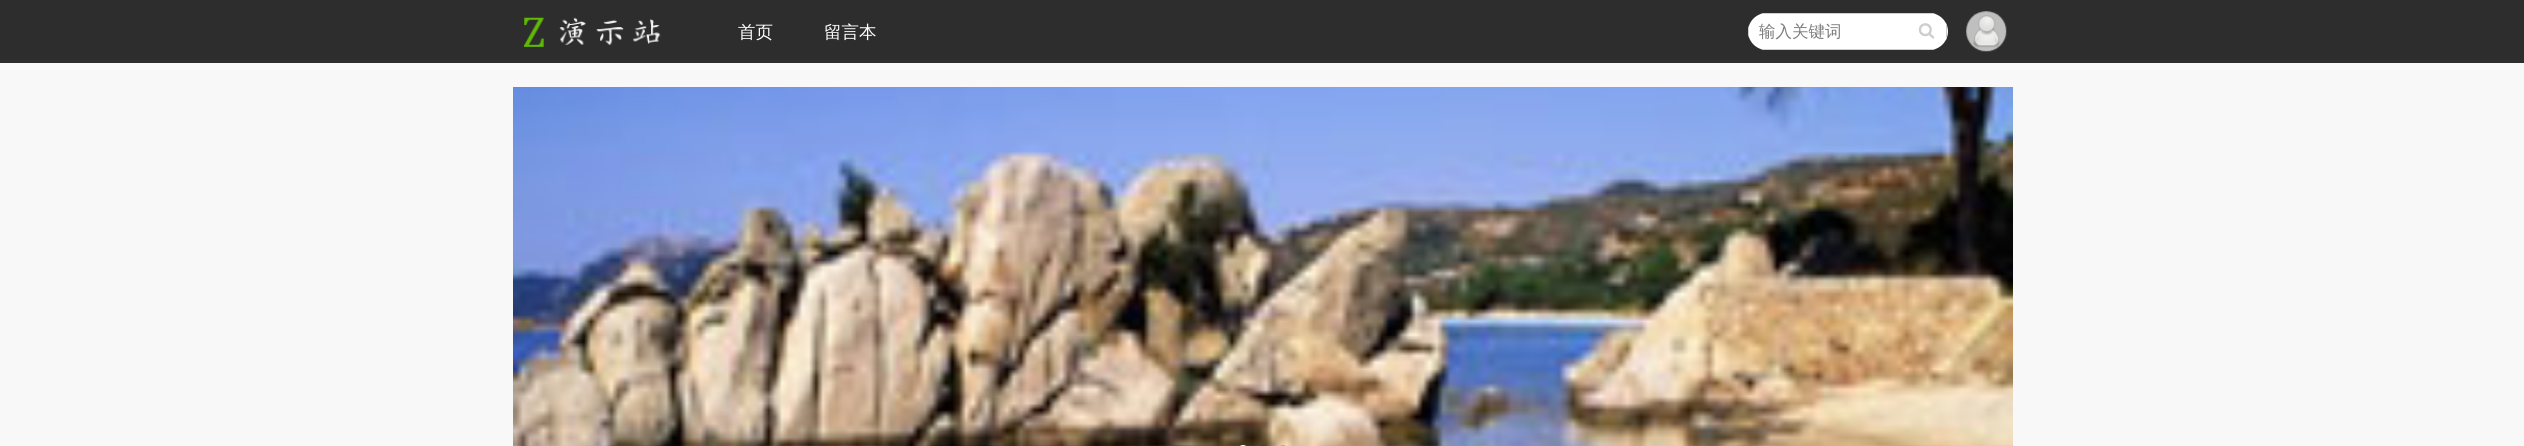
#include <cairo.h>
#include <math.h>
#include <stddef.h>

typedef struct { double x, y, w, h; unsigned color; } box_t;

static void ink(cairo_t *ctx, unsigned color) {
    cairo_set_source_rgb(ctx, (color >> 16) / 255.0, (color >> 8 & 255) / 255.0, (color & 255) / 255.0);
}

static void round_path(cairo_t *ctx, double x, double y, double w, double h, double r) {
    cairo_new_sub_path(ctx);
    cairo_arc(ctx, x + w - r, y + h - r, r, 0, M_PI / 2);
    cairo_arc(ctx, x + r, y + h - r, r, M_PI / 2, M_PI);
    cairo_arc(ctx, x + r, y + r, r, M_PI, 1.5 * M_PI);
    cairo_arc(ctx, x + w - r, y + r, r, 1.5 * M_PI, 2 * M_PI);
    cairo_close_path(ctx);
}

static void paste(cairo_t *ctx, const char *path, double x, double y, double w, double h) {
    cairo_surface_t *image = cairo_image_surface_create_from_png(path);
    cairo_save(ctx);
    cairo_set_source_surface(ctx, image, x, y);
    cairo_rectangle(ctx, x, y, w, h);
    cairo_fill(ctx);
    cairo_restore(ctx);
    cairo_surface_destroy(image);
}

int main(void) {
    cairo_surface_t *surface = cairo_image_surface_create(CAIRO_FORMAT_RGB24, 2524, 446);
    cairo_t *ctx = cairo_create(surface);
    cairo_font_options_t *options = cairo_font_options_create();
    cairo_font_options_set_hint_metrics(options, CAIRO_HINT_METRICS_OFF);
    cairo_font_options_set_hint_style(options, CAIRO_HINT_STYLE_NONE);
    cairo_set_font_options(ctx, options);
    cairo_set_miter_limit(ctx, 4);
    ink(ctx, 0xF8F8F8);
    cairo_paint(ctx);
    ink(ctx, 0x2D2D2D);
    cairo_rectangle(ctx, 0, 0, 2524, 63);
    cairo_fill(ctx);
    paste(ctx, "media/1.png", 523, 17, 138, 30);
    cairo_select_font_face(ctx, "WenQuanYi Zen Hei Medium", CAIRO_FONT_SLANT_NORMAL, CAIRO_FONT_WEIGHT_NORMAL);
    cairo_set_font_size(ctx, 17.5);
    ink(ctx, 0xFFFFFF);
    cairo_move_to(ctx, 738, 38);
    cairo_show_text(ctx, "首页");
    cairo_move_to(ctx, 824, 38);
    cairo_show_text(ctx, "留言本");
    cairo_new_path(ctx);
    cairo_move_to(ctx, 1766.5, 13);
    cairo_line_to(ctx, 1908, 13);
    cairo_line_to(ctx, 1908, 50);
    cairo_line_to(ctx, 1766.5, 50);
    cairo_curve_to(ctx, 1756.5, 50, 1748, 41.5, 1748, 31.5);
    cairo_curve_to(ctx, 1748, 21.5, 1756.5, 13, 1766.5, 13);
    cairo_close_path(ctx);
    cairo_fill(ctx);
    cairo_save(ctx);
    round_path(ctx, 1748, 13, 200, 37, 18.5);
    cairo_clip(ctx);
    {
        static const box_t items[] = {
            {1760, 13, 148, 1, 0xCECECE},
            {1760, 49, 148, 1, 0xCECECE},
            {1748, 25, 1, 13, 0xCECECE},
        };
        for (size_t i = 0; i < sizeof items / sizeof *items; i++) {
            ink(ctx, items[i].color);
            cairo_rectangle(ctx, items[i].x, items[i].y, items[i].w, items[i].h);
            cairo_fill(ctx);
        }
    }
    cairo_restore(ctx);
    cairo_set_font_size(ctx, 16.5);
    ink(ctx, 0x7C7C7C);
    cairo_move_to(ctx, 1759, 37);
    cairo_show_text(ctx, "输入关键词");
    ink(ctx, 0xFFFFFF);
    cairo_new_path(ctx);
    cairo_move_to(ctx, 1908, 13);
    cairo_line_to(ctx, 1929.5, 13);
    cairo_curve_to(ctx, 1939.5, 13, 1948, 21.5, 1948, 31.5);
    cairo_curve_to(ctx, 1948, 41.5, 1939.5, 50, 1929.5, 50);
    cairo_line_to(ctx, 1908, 50);
    cairo_close_path(ctx);
    cairo_fill(ctx);
    cairo_save(ctx);
    round_path(ctx, 1748, 13, 200, 37, 18.5);
    cairo_clip(ctx);
    {
        static const box_t items[] = {
            {1908, 13, 28, 1, 0xCECECE},
            {1946, 23, 1, 17, 0xCECECE},
            {1908, 49, 28, 1, 0xCECECE},
        };
        for (size_t i = 0; i < sizeof items / sizeof *items; i++) {
            ink(ctx, items[i].color);
            cairo_rectangle(ctx, items[i].x, items[i].y, items[i].w, items[i].h);
            cairo_fill(ctx);
        }
    }
    cairo_restore(ctx);
    paste(ctx, "media/2.png", 1918, 23, 17, 16);
    paste(ctx, "media/3.png", 1966, 11, 41, 41);
    paste(ctx, "media/4.png", 513, 87, 1500, 359);
    round_path(ctx, 1238, 445, 10, 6, 5);
    cairo_fill(ctx);
    cairo_set_source_rgba(ctx, 0, 0, 0, 0.2);
    round_path(ctx, 1258, 445, 10, 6, 5);
    cairo_fill(ctx);
    round_path(ctx, 1278, 445, 10, 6, 5);
    cairo_fill(ctx);
    cairo_surface_write_to_png(surface, "image.png");
    cairo_font_options_destroy(options);
    cairo_destroy(ctx);
    cairo_surface_destroy(surface);
    return 0;
}
